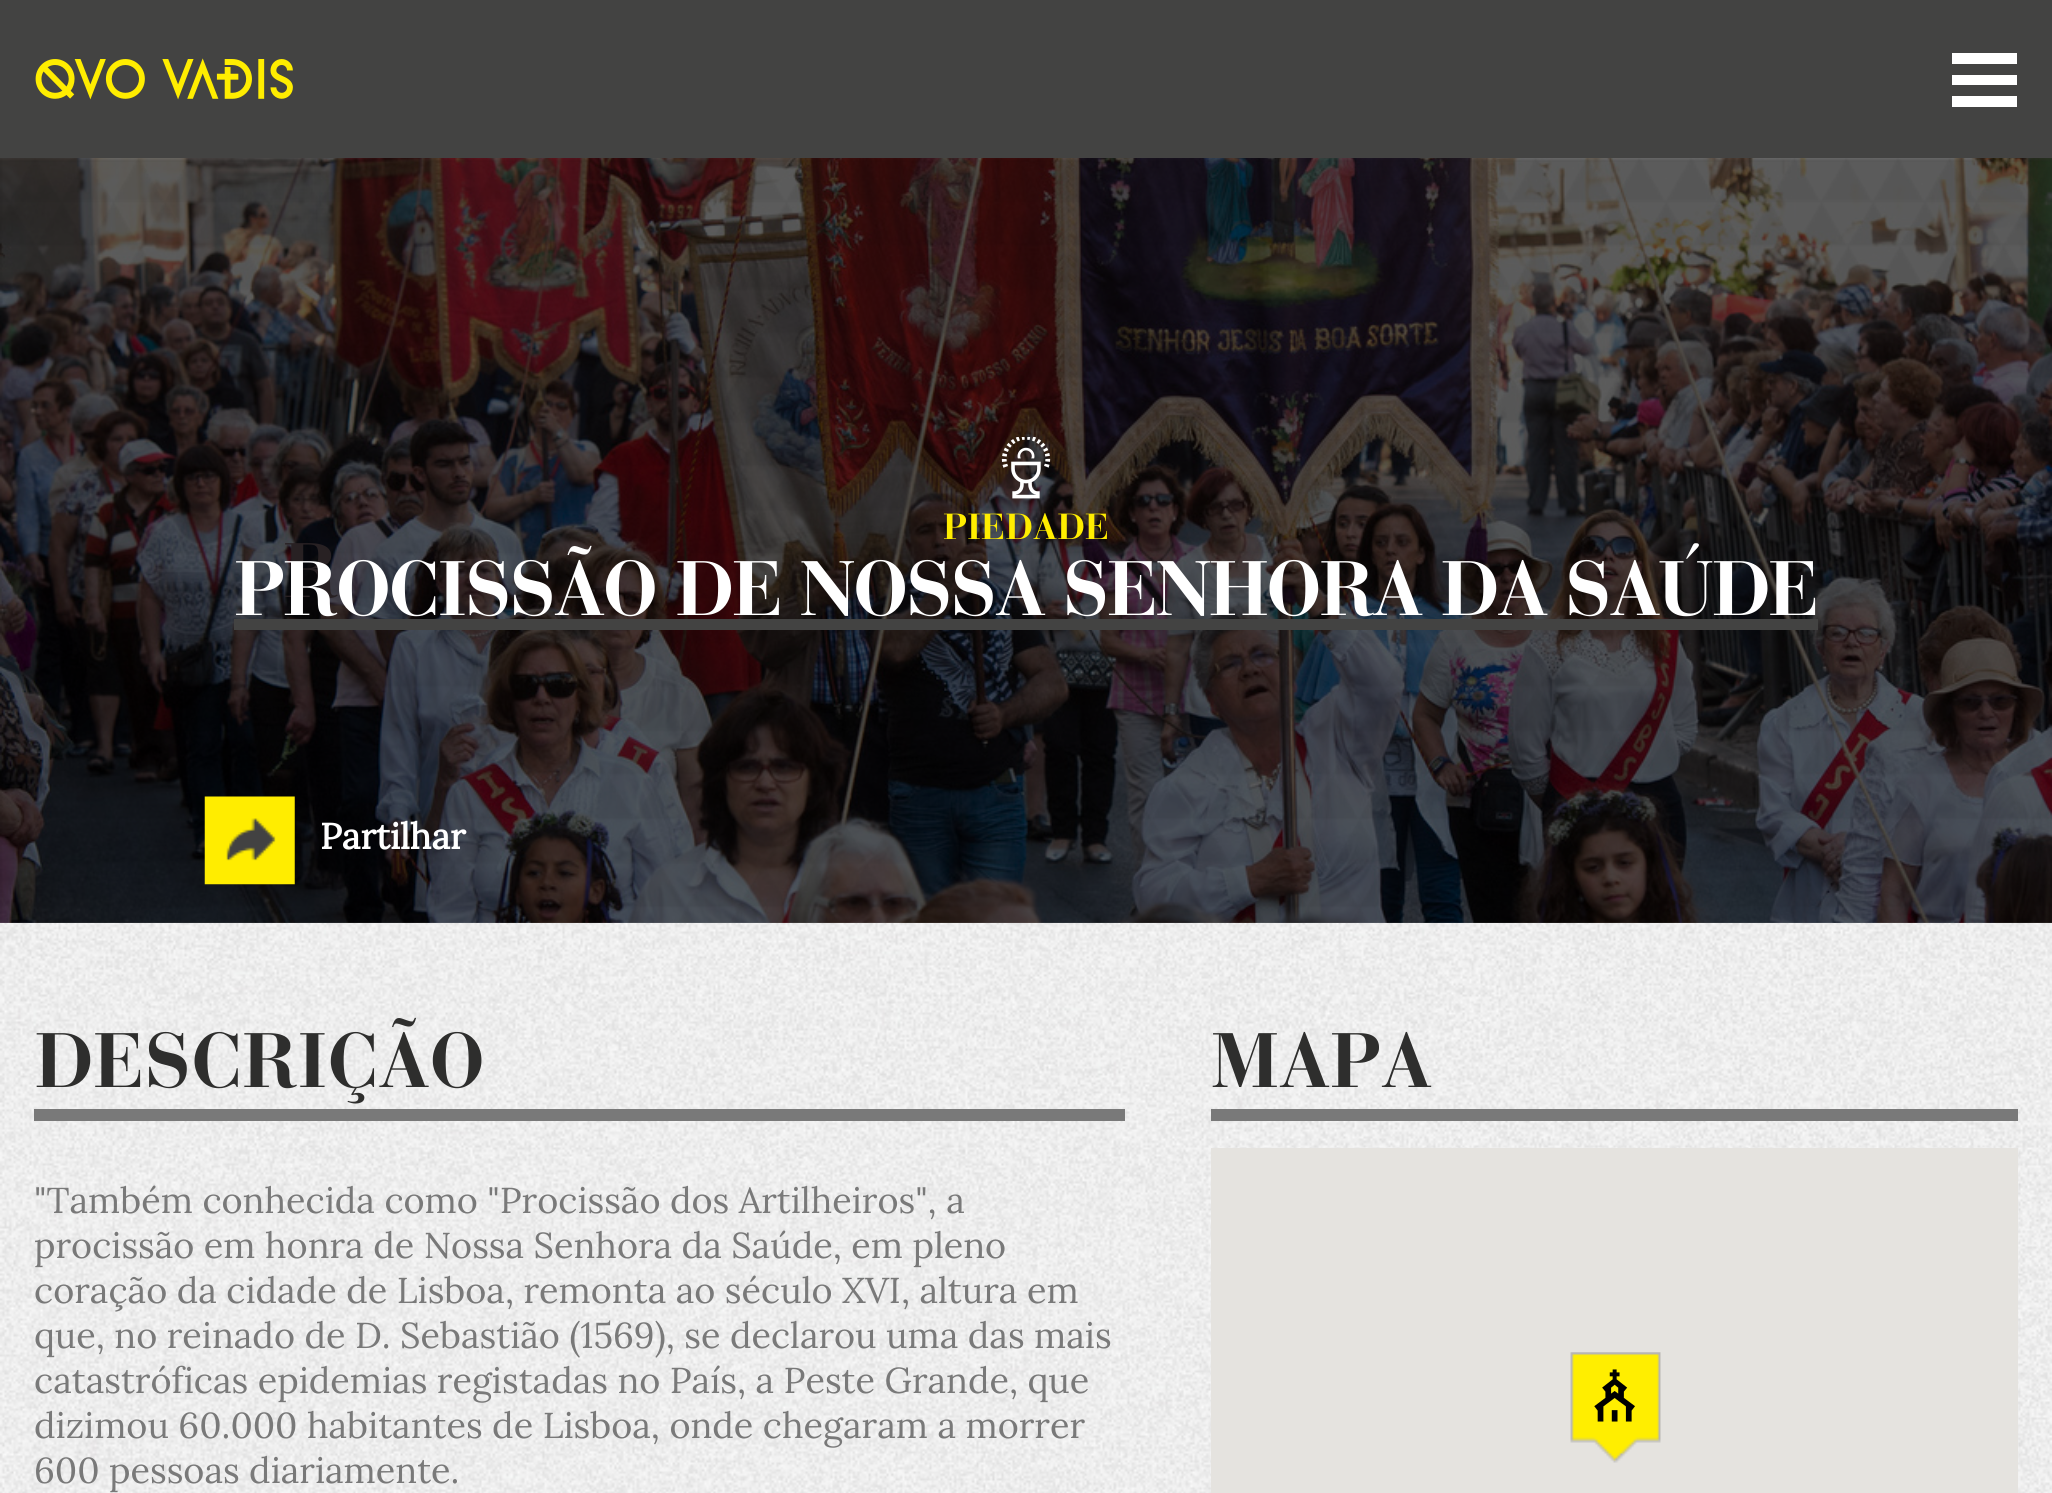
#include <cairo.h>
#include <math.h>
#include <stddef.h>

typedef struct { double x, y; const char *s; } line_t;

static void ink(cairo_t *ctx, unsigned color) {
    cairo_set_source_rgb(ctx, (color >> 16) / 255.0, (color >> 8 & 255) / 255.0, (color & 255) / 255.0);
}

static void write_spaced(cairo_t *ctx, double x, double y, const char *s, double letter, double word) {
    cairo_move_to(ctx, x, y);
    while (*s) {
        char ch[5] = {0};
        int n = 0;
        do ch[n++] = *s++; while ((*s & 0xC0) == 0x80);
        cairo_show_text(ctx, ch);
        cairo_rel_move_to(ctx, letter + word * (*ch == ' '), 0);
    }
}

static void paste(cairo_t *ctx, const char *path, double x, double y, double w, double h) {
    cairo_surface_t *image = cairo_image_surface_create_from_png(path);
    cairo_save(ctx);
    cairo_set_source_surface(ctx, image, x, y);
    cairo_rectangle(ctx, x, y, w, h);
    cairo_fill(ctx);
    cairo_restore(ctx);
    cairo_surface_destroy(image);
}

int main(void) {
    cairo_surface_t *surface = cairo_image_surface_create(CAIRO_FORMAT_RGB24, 2052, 1493);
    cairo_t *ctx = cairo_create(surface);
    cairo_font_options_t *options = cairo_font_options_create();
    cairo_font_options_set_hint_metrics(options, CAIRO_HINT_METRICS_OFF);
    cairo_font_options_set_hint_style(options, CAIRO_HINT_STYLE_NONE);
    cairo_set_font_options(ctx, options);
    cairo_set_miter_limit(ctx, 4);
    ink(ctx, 0xFFFFFF);
    cairo_paint(ctx);
    paste(ctx, "media/1.png", 0, 923, 2052, 570);
    ink(ctx, 0x434342);
    cairo_rectangle(ctx, 0, 0, 2052, 158);
    cairo_fill(ctx);
    paste(ctx, "media/2.png", 35, 58, 258, 42);
    ink(ctx, 0xFFFFFF);
    cairo_new_path(ctx);
    cairo_move_to(ctx, 1952, 107);
    cairo_line_to(ctx, 2017, 107);
    cairo_line_to(ctx, 2017, 96);
    cairo_line_to(ctx, 1952, 96);
    cairo_close_path(ctx);
    cairo_move_to(ctx, 1952, 85);
    cairo_line_to(ctx, 2017, 85);
    cairo_line_to(ctx, 2017, 75);
    cairo_line_to(ctx, 1952, 75);
    cairo_close_path(ctx);
    cairo_move_to(ctx, 1952, 53);
    cairo_line_to(ctx, 1952, 64);
    cairo_line_to(ctx, 2017, 64);
    cairo_line_to(ctx, 2017, 53);
    cairo_close_path(ctx);
    cairo_fill(ctx);
    ink(ctx, 0x2E2E2D);
    cairo_rectangle(ctx, 0, 922, 2052, 1);
    cairo_fill(ctx);
    paste(ctx, "media/3.png", 0, 158, 2052, 765);
    paste(ctx, "media/4.png", 0, 158, 2052, 765);
    paste(ctx, "media/5.png", 1001, 437, 50, 62);
    cairo_select_font_face(ctx, "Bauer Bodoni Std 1", CAIRO_FONT_SLANT_NORMAL, CAIRO_FONT_WEIGHT_BOLD);
    cairo_set_font_size(ctx, 36);
    ink(ctx, 0xFFED00);
    cairo_move_to(ctx, 943, 539);
    cairo_show_text(ctx, "PIEDADE");
    cairo_set_font_size(ctx, 76.5);
    ink(ctx, 0x282123);
    write_spaced(ctx, 283, 597, "R", -2.25, 0);
    ink(ctx, 0xFFFFFF);
    write_spaced(ctx, 234, 615, "PROCISSÃO DE NOSSA SENHORA DA SAÚDE", -2.25, 0);
    ink(ctx, 0x434342);
    cairo_rectangle(ctx, 234, 619, 1584, 11);
    cairo_fill(ctx);
    paste(ctx, "media/6.png", 204, 796, 91, 89);
    cairo_select_font_face(ctx, "Lora", CAIRO_FONT_SLANT_NORMAL, CAIRO_FONT_WEIGHT_BOLD);
    cairo_set_font_size(ctx, 36);
    ink(ctx, 0xFFFFFF);
    cairo_move_to(ctx, 320, 849);
    cairo_show_text(ctx, "Partilhar");
    ink(ctx, 0x797979);
    cairo_rectangle(ctx, 34, 1109, 1091, 12);
    cairo_fill(ctx);
    cairo_select_font_face(ctx, "Bauer Bodoni Std 1", CAIRO_FONT_SLANT_NORMAL, CAIRO_FONT_WEIGHT_BOLD);
    cairo_set_font_size(ctx, 76.5);
    ink(ctx, 0x2E2E2D);
    cairo_move_to(ctx, 34, 1087);
    cairo_show_text(ctx, "DESCRIÇÃO");
    cairo_select_font_face(ctx, "Lora", CAIRO_FONT_SLANT_NORMAL, CAIRO_FONT_WEIGHT_NORMAL);
    cairo_set_font_size(ctx, 36);
    ink(ctx, 0x797979);
    {
        static const line_t items[] = {
            {34, 1213, "\"Também conhecida como \"Procissão dos Artilheiros\", a"},
            {34, 1258, "procissão em honra de Nossa Senhora da Saúde, em pleno"},
            {34, 1303, "coração da cidade de Lisboa, remonta ao século XVI, altura em"},
            {34, 1348, "que, no reinado de D. Sebastião (1569), se declarou uma das mais"},
            {34, 1393, "catastróficas epidemias registadas no País, a Peste Grande, que"},
            {34, 1438, "dizimou 60.000 habitantes de Lisboa, onde chegaram a morrer"},
            {34, 1483, "600 pessoas diariamente."},
        };
        for (size_t i = 0; i < sizeof items / sizeof *items; i++) {
            cairo_move_to(ctx, items[i].x, items[i].y);
            cairo_show_text(ctx, items[i].s);
        }
    }
    cairo_rectangle(ctx, 1211, 1109, 807, 12);
    cairo_fill(ctx);
    cairo_select_font_face(ctx, "Bauer Bodoni Std 1", CAIRO_FONT_SLANT_NORMAL, CAIRO_FONT_WEIGHT_BOLD);
    cairo_set_font_size(ctx, 76.5);
    ink(ctx, 0x2E2E2D);
    cairo_move_to(ctx, 1211, 1087);
    cairo_show_text(ctx, "MAPA");
    ink(ctx, 0xE5E3DF);
    cairo_rectangle(ctx, 1211, 1148, 807, 345);
    cairo_fill(ctx);
    paste(ctx, "media/7.png", 1570, 1352, 91, 111);
    paste(ctx, "media/8.png", 1594, 1369, 41, 53);
    cairo_surface_write_to_png(surface, "image.png");
    cairo_font_options_destroy(options);
    cairo_destroy(ctx);
    cairo_surface_destroy(surface);
    return 0;
}
